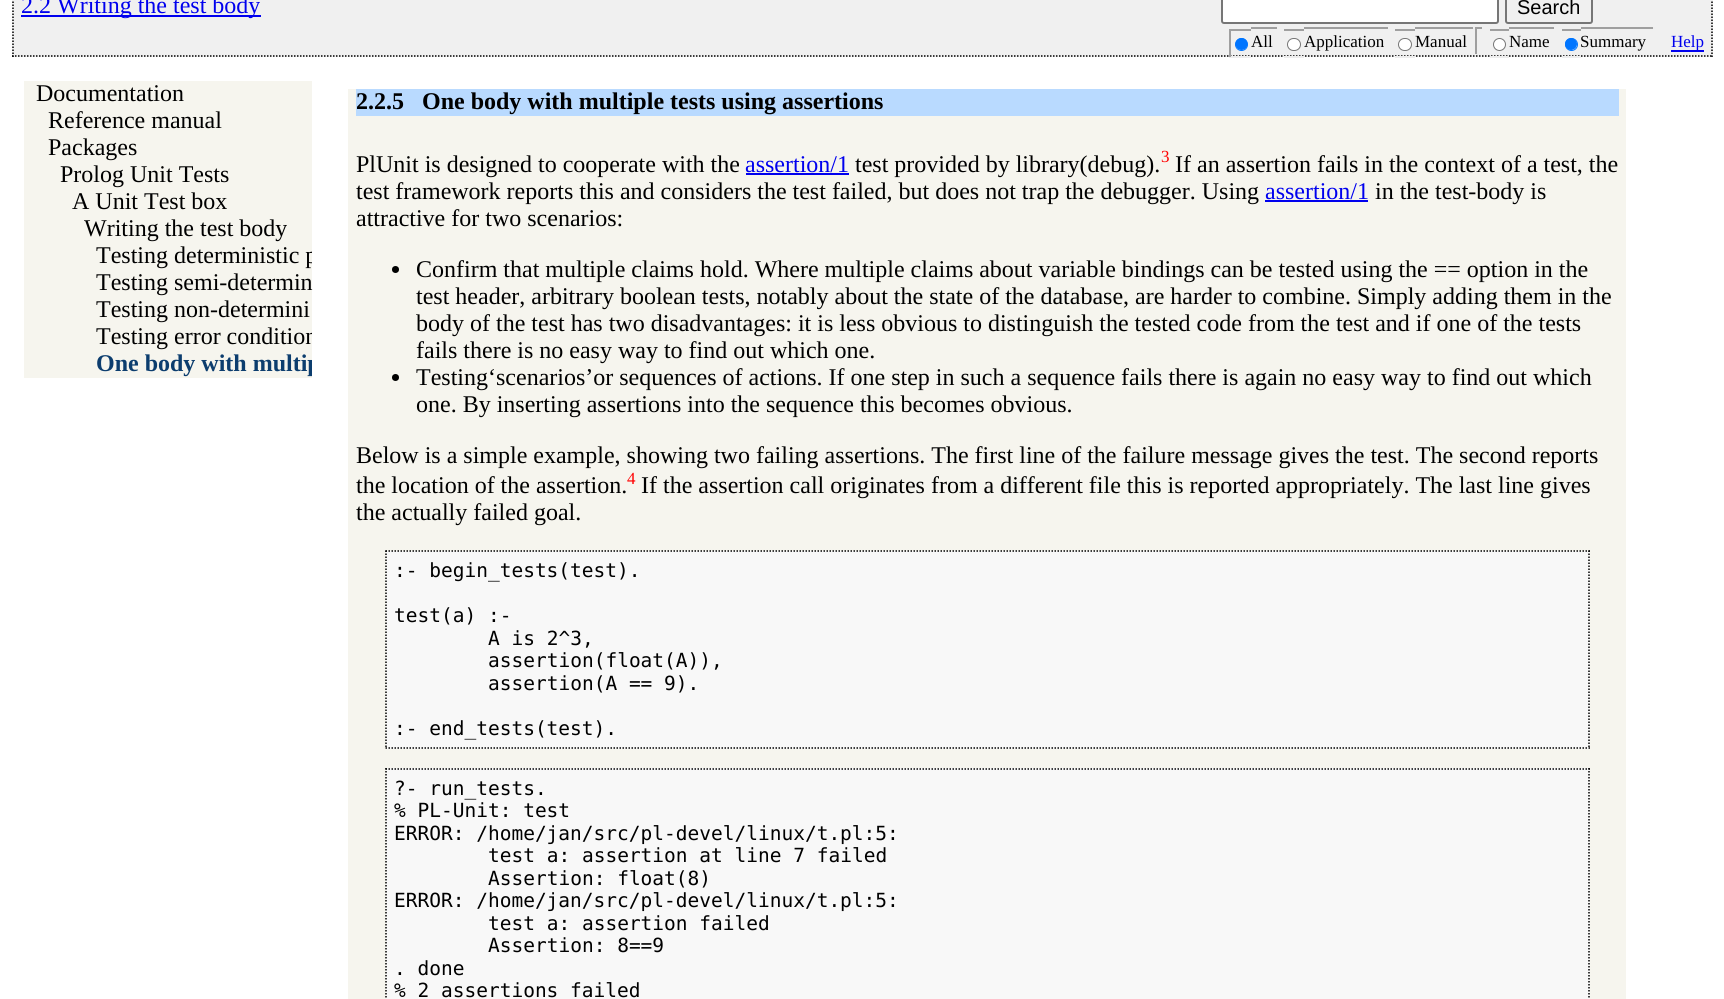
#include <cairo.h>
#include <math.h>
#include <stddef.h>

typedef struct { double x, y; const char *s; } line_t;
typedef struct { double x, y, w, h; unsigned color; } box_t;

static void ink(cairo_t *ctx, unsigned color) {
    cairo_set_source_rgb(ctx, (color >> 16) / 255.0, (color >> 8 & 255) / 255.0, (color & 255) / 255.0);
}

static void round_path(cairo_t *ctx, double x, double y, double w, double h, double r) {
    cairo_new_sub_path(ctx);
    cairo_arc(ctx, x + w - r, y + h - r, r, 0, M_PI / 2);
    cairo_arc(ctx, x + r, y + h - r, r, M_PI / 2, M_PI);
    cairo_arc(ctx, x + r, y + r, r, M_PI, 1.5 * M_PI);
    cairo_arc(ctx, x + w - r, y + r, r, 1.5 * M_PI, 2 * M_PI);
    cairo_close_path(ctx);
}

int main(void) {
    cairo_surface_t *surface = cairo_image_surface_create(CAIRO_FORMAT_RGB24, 1724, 999);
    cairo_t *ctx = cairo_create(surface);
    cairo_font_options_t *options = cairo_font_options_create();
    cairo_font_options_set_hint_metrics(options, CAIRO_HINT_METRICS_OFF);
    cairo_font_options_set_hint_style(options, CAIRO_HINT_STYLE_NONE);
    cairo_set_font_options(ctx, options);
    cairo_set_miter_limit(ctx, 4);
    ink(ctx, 0xFFFFFF);
    cairo_paint(ctx);
    ink(ctx, 0xF0F0F0);
    cairo_rectangle(ctx, 12, 0, 1701, 57);
    cairo_fill(ctx);
    cairo_new_path(ctx);
    cairo_move_to(ctx, 1712, -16.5);
    cairo_line_to(ctx, 1712, 57);
    ink(ctx, 0x000000);
    cairo_set_line_width(ctx, 1.5);
    cairo_set_dash(ctx, (double[]){1.5, 1.5}, 2, 0);
    cairo_stroke(ctx);
    cairo_new_path(ctx);
    cairo_move_to(ctx, 12, 56);
    cairo_line_to(ctx, 1713, 56);
    cairo_stroke(ctx);
    cairo_new_path(ctx);
    cairo_move_to(ctx, 13, -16.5);
    cairo_line_to(ctx, 13, 57);
    cairo_stroke(ctx);
    ink(ctx, 0x0000EE);
    cairo_rectangle(ctx, 21, 15, 240, 2);
    cairo_fill(ctx);
    cairo_select_font_face(ctx, "Liberation Serif", CAIRO_FONT_SLANT_NORMAL, CAIRO_FONT_WEIGHT_NORMAL);
    cairo_set_font_size(ctx, 24);
    cairo_move_to(ctx, 21, 13);
    cairo_show_text(ctx, "2.2 Writing the test body");
    ink(ctx, 0xFFFFFF);
    round_path(ctx, 1222, -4, 276, 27, 2);
    cairo_fill_preserve(ctx);
    ink(ctx, 0x767676);
    cairo_set_line_width(ctx, 2);
    cairo_set_dash(ctx, NULL, 0, 0);
    cairo_stroke(ctx);
    round_path(ctx, 1506, -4, 86, 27, 2);
    cairo_stroke(ctx);
    cairo_select_font_face(ctx, "Liberation Sans", CAIRO_FONT_SLANT_NORMAL, CAIRO_FONT_WEIGHT_NORMAL);
    cairo_set_font_size(ctx, 20);
    ink(ctx, 0x000000);
    cairo_move_to(ctx, 1517, 14);
    cairo_show_text(ctx, "Search");
    {
        static const box_t items[] = {
            {1229, 29, 22, 2, 0x9F9F9F},
            {1229, 56, 22, 2, 0xEEEEEE},
            {1229, 29, 2, 28, 0x9F9F9F},
            {1251, 27, 26, 2, 0x9F9F9F},
            {1284, 29, 20, 2, 0x9F9F9F},
            {1284, 56, 20, 2, 0xEEEEEE},
            {1304, 27, 84, 2, 0x9F9F9F},
            {1395, 29, 20, 2, 0x9F9F9F},
            {1395, 56, 20, 2, 0xEEEEEE},
            {1415, 27, 67, 2, 0x9F9F9F},
            {1473, 27, 2, 2, 0xEEEEEE},
        };
        for (size_t i = 0; i < sizeof items / sizeof *items; i++) {
            ink(ctx, items[i].color);
            cairo_rectangle(ctx, items[i].x, items[i].y, items[i].w, items[i].h);
            cairo_fill(ctx);
        }
    }
    cairo_new_path(ctx);
    cairo_arc(ctx, 1241.5, 44.5, 6, 0, 2 * M_PI);
    ink(ctx, 0x0075FF);
    cairo_set_line_width(ctx, 1);
    cairo_stroke(ctx);
    cairo_arc(ctx, 1241.5, 44, 6, 0, 2 * M_PI);
    cairo_fill(ctx);
    cairo_select_font_face(ctx, "Liberation Serif", CAIRO_FONT_SLANT_NORMAL, CAIRO_FONT_WEIGHT_NORMAL);
    cairo_set_font_size(ctx, 17);
    ink(ctx, 0x000000);
    cairo_move_to(ctx, 1251, 47);
    cairo_show_text(ctx, "All");
    ink(ctx, 0xFFFFFF);
    round_path(ctx, 1287.5, 38.5, 13, 12, 6);
    cairo_fill_preserve(ctx);
    ink(ctx, 0x767676);
    cairo_stroke(ctx);
    ink(ctx, 0x000000);
    cairo_move_to(ctx, 1304, 47);
    cairo_show_text(ctx, "Application");
    ink(ctx, 0xFFFFFF);
    round_path(ctx, 1398.5, 38.5, 13, 12, 6);
    cairo_fill_preserve(ctx);
    ink(ctx, 0x767676);
    cairo_stroke(ctx);
    ink(ctx, 0x000000);
    cairo_move_to(ctx, 1415, 47);
    cairo_show_text(ctx, "Manual");
    {
        static const box_t items[] = {
            {1475, 27, 2, 27, 0x9F9F9F},
            {1490, 29, 19, 2, 0x9F9F9F},
            {1490, 56, 19, 2, 0xEEEEEE},
            {1509, 27, 45, 2, 0x9F9F9F},
            {1562, 29, 19, 2, 0x9F9F9F},
            {1562, 56, 19, 2, 0xEEEEEE},
            {1581, 27, 74, 2, 0x9F9F9F},
            {1653, 27, 2, 2, 0xEEEEEE},
        };
        for (size_t i = 0; i < sizeof items / sizeof *items; i++) {
            ink(ctx, items[i].color);
            cairo_rectangle(ctx, items[i].x, items[i].y, items[i].w, items[i].h);
            cairo_fill(ctx);
        }
    }
    ink(ctx, 0xFFFFFF);
    cairo_new_path(ctx);
    cairo_arc(ctx, 1499.5, 44.5, 6, 0, 2 * M_PI);
    cairo_fill_preserve(ctx);
    ink(ctx, 0x767676);
    cairo_stroke(ctx);
    ink(ctx, 0x000000);
    cairo_move_to(ctx, 1509, 47);
    cairo_show_text(ctx, "Name");
    ink(ctx, 0xFFFFFF);
    cairo_new_path(ctx);
    cairo_arc(ctx, 1571.5, 44.5, 6, 0, 2 * M_PI);
    cairo_fill_preserve(ctx);
    ink(ctx, 0x0075FF);
    cairo_stroke(ctx);
    cairo_arc(ctx, 1571, 44, 6, 0, 2 * M_PI);
    cairo_fill(ctx);
    ink(ctx, 0x000000);
    cairo_move_to(ctx, 1580, 47);
    cairo_show_text(ctx, "Summary");
    ink(ctx, 0x0000EE);
    cairo_rectangle(ctx, 1671, 50, 33, 2);
    cairo_fill(ctx);
    cairo_move_to(ctx, 1671, 47);
    cairo_show_text(ctx, "Help");
    ink(ctx, 0xF6F5EE);
    cairo_rectangle(ctx, 24, 81, 288, 297);
    cairo_fill(ctx);
    cairo_set_font_size(ctx, 24);
    ink(ctx, 0x000000);
    {
        static const line_t items[] = {
            {36, 101, "Documentation"},
            {48, 128, "Reference manual"},
            {48, 155, "Packages"},
            {60, 182, "Prolog Unit Tests"},
            {72, 209, "A Unit Test box"},
            {84, 236, "Writing the test body"},
        };
        for (size_t i = 0; i < sizeof items / sizeof *items; i++) {
            cairo_move_to(ctx, items[i].x, items[i].y);
            cairo_show_text(ctx, items[i].s);
        }
    }
    cairo_save(ctx);
    cairo_rectangle(ctx, 24, 81, 288, 297);
    cairo_clip(ctx);
    cairo_move_to(ctx, 96, 263);
    cairo_show_text(ctx, "Testing deterministic p");
    cairo_restore(ctx);
    cairo_move_to(ctx, 96, 290);
    cairo_show_text(ctx, "Testing semi-determin");
    cairo_move_to(ctx, 96, 317);
    cairo_show_text(ctx, "Testing non-determini");
    cairo_save(ctx);
    cairo_rectangle(ctx, 24, 81, 288, 297);
    cairo_clip(ctx);
    cairo_move_to(ctx, 96, 344);
    cairo_show_text(ctx, "Testing error condition");
    cairo_select_font_face(ctx, "Liberation Serif", CAIRO_FONT_SLANT_NORMAL, CAIRO_FONT_WEIGHT_BOLD);
    ink(ctx, 0x0C3D6E);
    cairo_move_to(ctx, 96, 371);
    cairo_show_text(ctx, "One body with multip");
    cairo_restore(ctx);
    ink(ctx, 0xF6F5EE);
    cairo_rectangle(ctx, 348, 89, 1278, 910);
    cairo_fill(ctx);
    ink(ctx, 0xB9DAFF);
    cairo_rectangle(ctx, 356, 89, 1263, 27);
    cairo_fill(ctx);
    cairo_select_font_face(ctx, "Liberation Serif", CAIRO_FONT_SLANT_NORMAL, CAIRO_FONT_WEIGHT_BOLD);
    ink(ctx, 0x000000);
    cairo_move_to(ctx, 356, 109);
    cairo_show_text(ctx, "2.2.5");
    cairo_move_to(ctx, 422, 109);
    cairo_show_text(ctx, "One body with multiple tests using assertions");
    cairo_select_font_face(ctx, "Liberation Serif", CAIRO_FONT_SLANT_NORMAL, CAIRO_FONT_WEIGHT_NORMAL);
    cairo_move_to(ctx, 356, 172);
    cairo_show_text(ctx, "PlUnit is designed to cooperate with the");
    ink(ctx, 0x0000EE);
    cairo_move_to(ctx, 745, 172);
    cairo_show_text(ctx, "assertion/1");
    cairo_rectangle(ctx, 746, 173, 103, 2);
    cairo_fill(ctx);
    ink(ctx, 0x000000);
    cairo_move_to(ctx, 855, 172);
    cairo_show_text(ctx, "test provided by library(debug).");
    cairo_set_font_size(ctx, 17);
    ink(ctx, 0xFF0000);
    cairo_move_to(ctx, 1161, 162);
    cairo_show_text(ctx, "3");
    cairo_set_font_size(ctx, 24);
    ink(ctx, 0x000000);
    cairo_move_to(ctx, 1175, 172);
    cairo_show_text(ctx, "If an assertion fails in the context of a test, the");
    cairo_move_to(ctx, 356, 199);
    cairo_show_text(ctx, "test framework reports this and considers the test failed, but does not trap the debugger. Using");
    ink(ctx, 0x0000EE);
    cairo_move_to(ctx, 1265, 199);
    cairo_show_text(ctx, "assertion/1");
    cairo_rectangle(ctx, 1265, 200, 103, 2);
    cairo_fill(ctx);
    ink(ctx, 0x000000);
    cairo_move_to(ctx, 1375, 199);
    cairo_show_text(ctx, "in the test-body is");
    cairo_move_to(ctx, 356, 226);
    cairo_show_text(ctx, "attractive for two scenarios:");
    cairo_new_path(ctx);
    cairo_arc(ctx, 395.5, 269.5, 3.5, 0, 2 * M_PI);
    cairo_fill(ctx);
    {
        static const line_t items[] = {
            {416, 277, "Confirm that multiple claims hold. Where multiple claims about variable bindings can be tested using the == option in the"},
            {416, 304, "test header, arbitrary boolean tests, notably about the state of the database, are harder to combine. Simply adding them in the"},
            {416, 331, "body of the test has two disadvantages: it is less obvious to distinguish the tested code from the test and if one of the tests"},
            {416, 358, "fails there is no easy way to find out which one."},
        };
        for (size_t i = 0; i < sizeof items / sizeof *items; i++) {
            cairo_move_to(ctx, items[i].x, items[i].y);
            cairo_show_text(ctx, items[i].s);
        }
    }
    cairo_new_path(ctx);
    cairo_arc(ctx, 395.5, 377.5, 3.5, 0, 2 * M_PI);
    cairo_fill(ctx);
    {
        static const line_t items[] = {
            {416, 385, "Testing‘scenarios’or sequences of actions. If one step in such a sequence fails there is again no easy way to find out which"},
            {416, 412, "one. By inserting assertions into the sequence this becomes obvious."},
            {356, 463, "Below is a simple example, showing two failing assertions. The first line of the failure message gives the test. The second reports"},
            {356, 493, "the location of the assertion."},
        };
        for (size_t i = 0; i < sizeof items / sizeof *items; i++) {
            cairo_move_to(ctx, items[i].x, items[i].y);
            cairo_show_text(ctx, items[i].s);
        }
    }
    cairo_set_font_size(ctx, 17);
    ink(ctx, 0xFF0000);
    cairo_move_to(ctx, 627, 484);
    cairo_show_text(ctx, "4");
    cairo_set_font_size(ctx, 24);
    ink(ctx, 0x000000);
    cairo_move_to(ctx, 641, 493);
    cairo_show_text(ctx, "If the assertion call originates from a different file this is reported appropriately. The last line gives");
    cairo_move_to(ctx, 356, 520);
    cairo_show_text(ctx, "the actually failed goal.");
    ink(ctx, 0xF8F8F8);
    cairo_rectangle(ctx, 386, 551, 1204, 198);
    cairo_fill(ctx);
    cairo_new_path(ctx);
    cairo_move_to(ctx, 385.5, 551);
    cairo_line_to(ctx, 1590, 551);
    ink(ctx, 0x000000);
    cairo_set_line_width(ctx, 1.5);
    cairo_set_dash(ctx, (double[]){1.5, 1.5}, 2, 0);
    cairo_stroke(ctx);
    cairo_new_path(ctx);
    cairo_move_to(ctx, 1589, 550.5);
    cairo_line_to(ctx, 1589, 748.5);
    cairo_stroke(ctx);
    cairo_new_path(ctx);
    cairo_move_to(ctx, 385.5, 748);
    cairo_line_to(ctx, 1590, 748);
    cairo_stroke(ctx);
    cairo_new_path(ctx);
    cairo_move_to(ctx, 386, 550.5);
    cairo_line_to(ctx, 386, 748.5);
    cairo_stroke(ctx);
    cairo_select_font_face(ctx, "DejaVu Sans Mono", CAIRO_FONT_SLANT_NORMAL, CAIRO_FONT_WEIGHT_NORMAL);
    cairo_set_font_size(ctx, 19.5);
    {
        static const line_t items[] = {
            {394, 577, ":- begin_tests(test)."},
            {394, 622, "test(a) :-"},
            {488, 645, "A is 2^3,"},
            {488, 667, "assertion(float(A)),"},
            {488, 690, "assertion(A == 9)."},
            {394, 735, ":- end_tests(test)."},
        };
        for (size_t i = 0; i < sizeof items / sizeof *items; i++) {
            cairo_move_to(ctx, items[i].x, items[i].y);
            cairo_show_text(ctx, items[i].s);
        }
    }
    ink(ctx, 0xF8F8F8);
    cairo_rectangle(ctx, 386, 768, 1204, 231);
    cairo_fill(ctx);
    cairo_new_path(ctx);
    cairo_move_to(ctx, 385.5, 769);
    cairo_line_to(ctx, 1590, 769);
    ink(ctx, 0x000000);
    cairo_stroke(ctx);
    cairo_new_path(ctx);
    cairo_move_to(ctx, 1589, 768);
    cairo_line_to(ctx, 1589, 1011);
    cairo_stroke(ctx);
    cairo_new_path(ctx);
    cairo_move_to(ctx, 386, 768);
    cairo_line_to(ctx, 386, 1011);
    cairo_stroke(ctx);
    {
        static const line_t items[] = {
            {394, 795, "?- run_tests."},
            {394, 817, "% PL-Unit: test"},
            {394, 840, "ERROR: /home/jan/src/pl-devel/linux/t.pl:5:"},
            {488, 862, "test a: assertion at line 7 failed"},
            {488, 885, "Assertion: float(8)"},
            {394, 907, "ERROR: /home/jan/src/pl-devel/linux/t.pl:5:"},
            {488, 930, "test a: assertion failed"},
            {488, 952, "Assertion: 8==9"},
            {394, 975, ". done"},
            {394, 997, "% 2 assertions failed"},
        };
        for (size_t i = 0; i < sizeof items / sizeof *items; i++) {
            cairo_move_to(ctx, items[i].x, items[i].y);
            cairo_show_text(ctx, items[i].s);
        }
    }
    cairo_surface_write_to_png(surface, "image.png");
    cairo_font_options_destroy(options);
    cairo_destroy(ctx);
    cairo_surface_destroy(surface);
    return 0;
}
